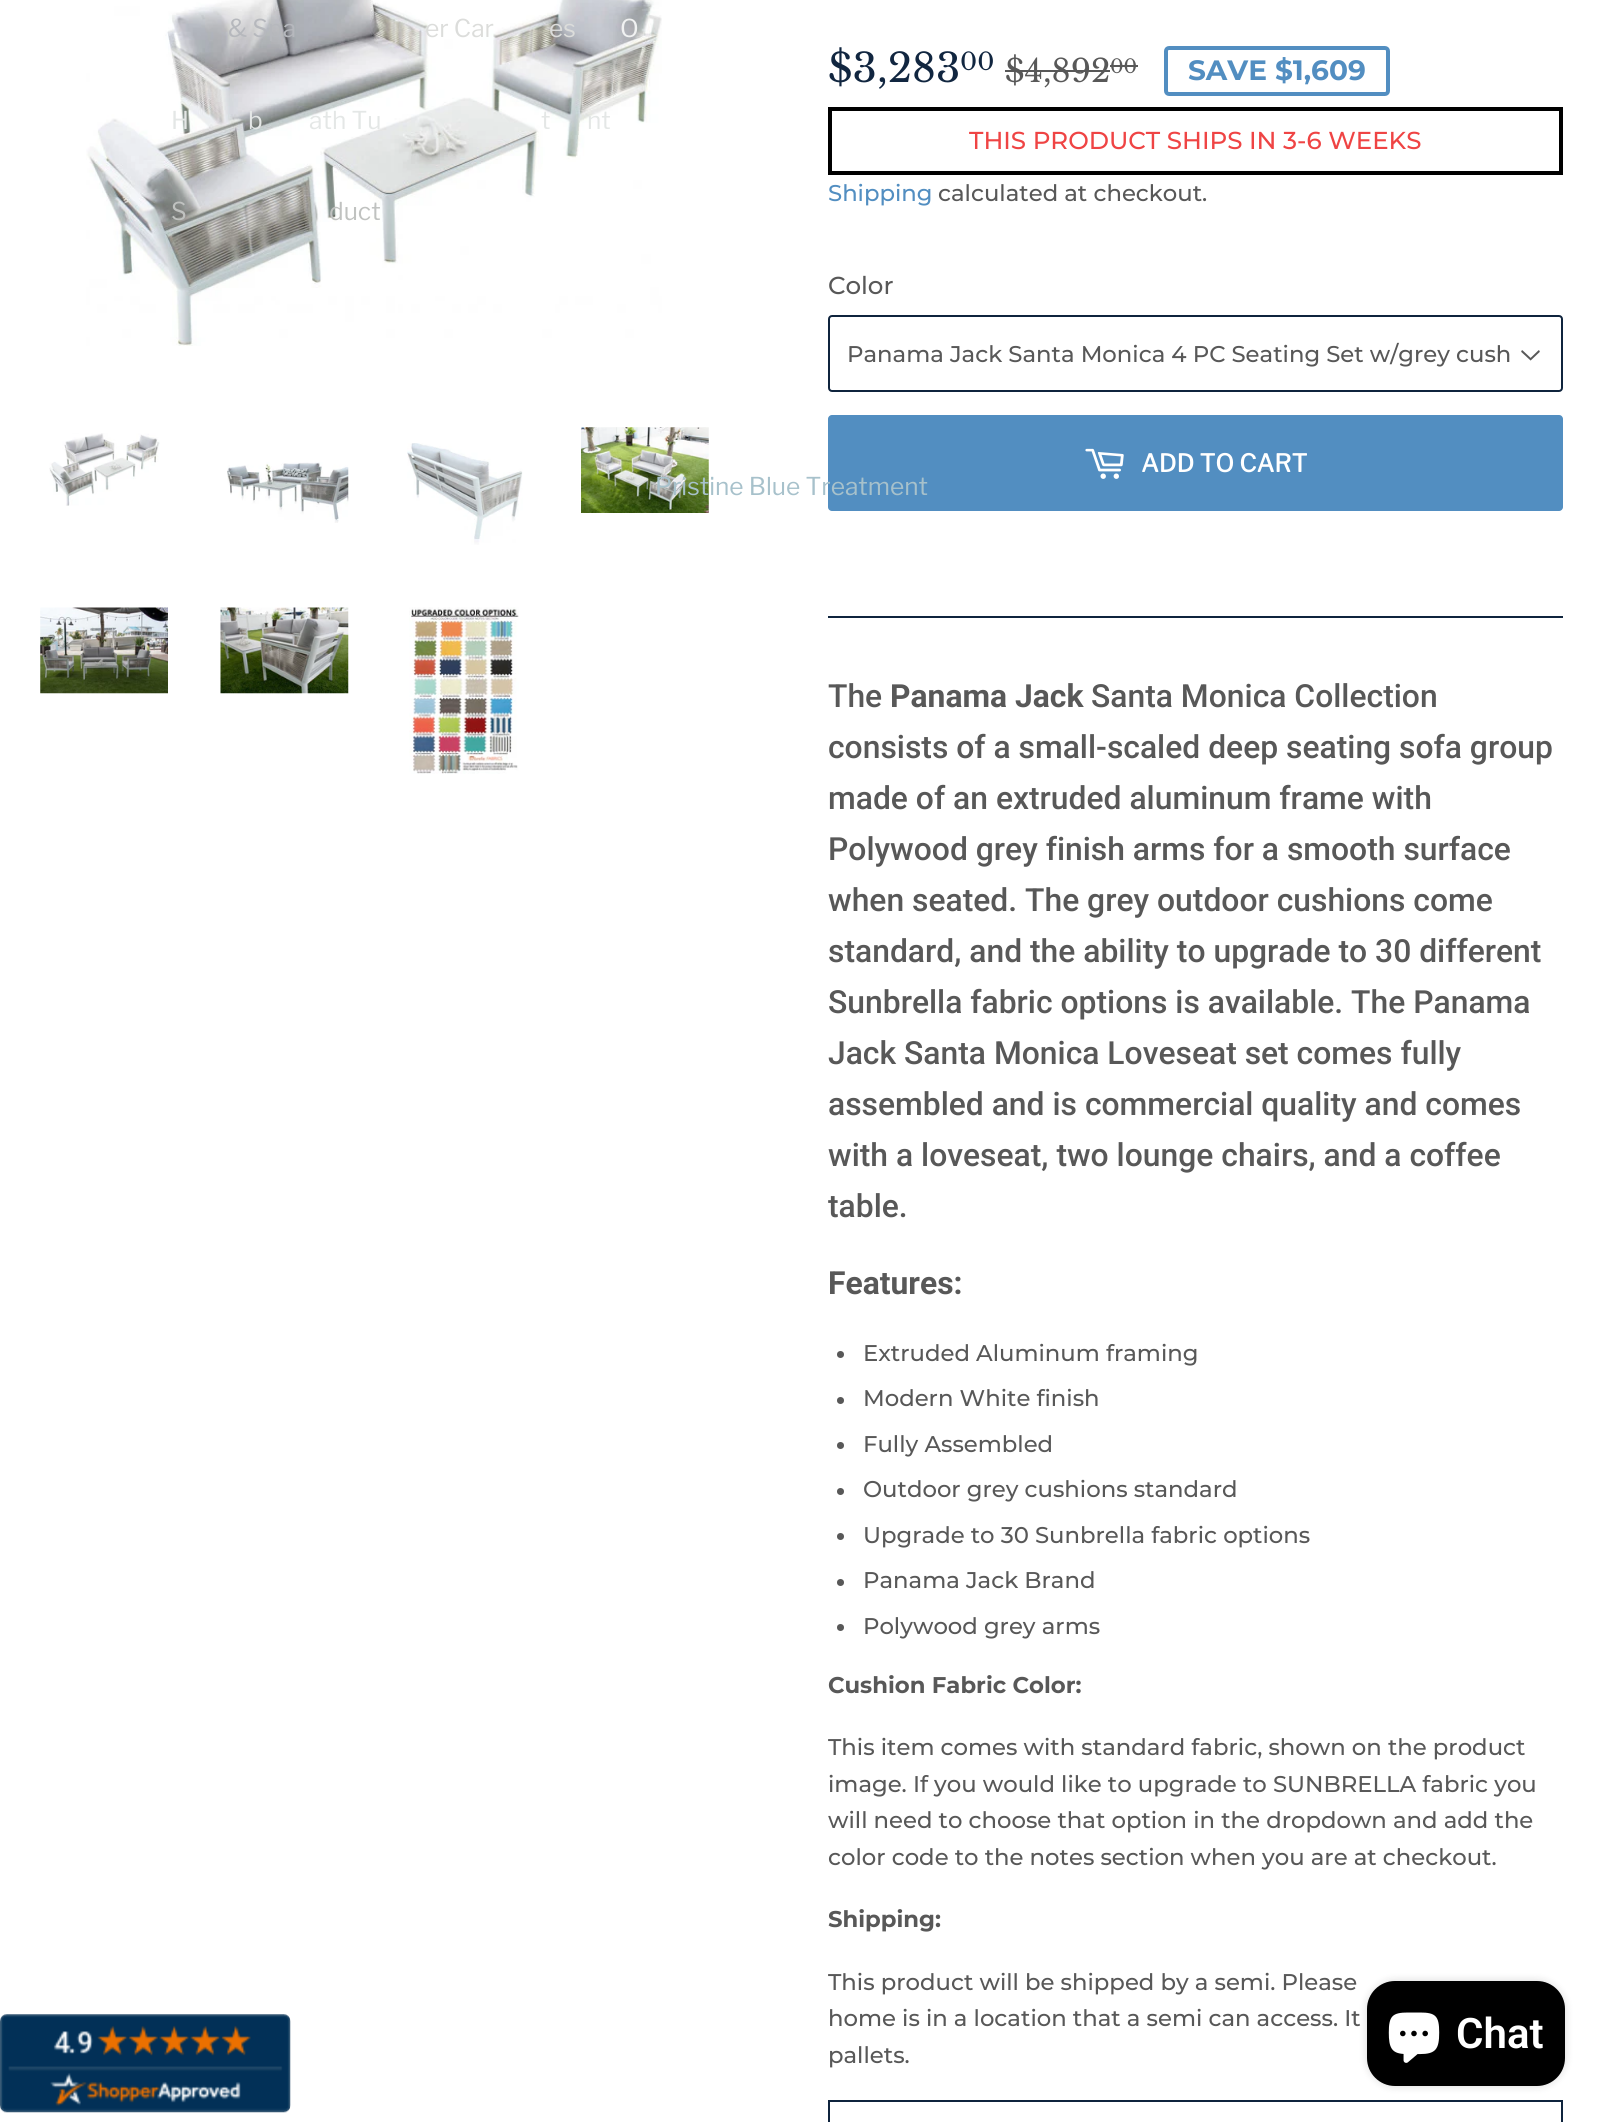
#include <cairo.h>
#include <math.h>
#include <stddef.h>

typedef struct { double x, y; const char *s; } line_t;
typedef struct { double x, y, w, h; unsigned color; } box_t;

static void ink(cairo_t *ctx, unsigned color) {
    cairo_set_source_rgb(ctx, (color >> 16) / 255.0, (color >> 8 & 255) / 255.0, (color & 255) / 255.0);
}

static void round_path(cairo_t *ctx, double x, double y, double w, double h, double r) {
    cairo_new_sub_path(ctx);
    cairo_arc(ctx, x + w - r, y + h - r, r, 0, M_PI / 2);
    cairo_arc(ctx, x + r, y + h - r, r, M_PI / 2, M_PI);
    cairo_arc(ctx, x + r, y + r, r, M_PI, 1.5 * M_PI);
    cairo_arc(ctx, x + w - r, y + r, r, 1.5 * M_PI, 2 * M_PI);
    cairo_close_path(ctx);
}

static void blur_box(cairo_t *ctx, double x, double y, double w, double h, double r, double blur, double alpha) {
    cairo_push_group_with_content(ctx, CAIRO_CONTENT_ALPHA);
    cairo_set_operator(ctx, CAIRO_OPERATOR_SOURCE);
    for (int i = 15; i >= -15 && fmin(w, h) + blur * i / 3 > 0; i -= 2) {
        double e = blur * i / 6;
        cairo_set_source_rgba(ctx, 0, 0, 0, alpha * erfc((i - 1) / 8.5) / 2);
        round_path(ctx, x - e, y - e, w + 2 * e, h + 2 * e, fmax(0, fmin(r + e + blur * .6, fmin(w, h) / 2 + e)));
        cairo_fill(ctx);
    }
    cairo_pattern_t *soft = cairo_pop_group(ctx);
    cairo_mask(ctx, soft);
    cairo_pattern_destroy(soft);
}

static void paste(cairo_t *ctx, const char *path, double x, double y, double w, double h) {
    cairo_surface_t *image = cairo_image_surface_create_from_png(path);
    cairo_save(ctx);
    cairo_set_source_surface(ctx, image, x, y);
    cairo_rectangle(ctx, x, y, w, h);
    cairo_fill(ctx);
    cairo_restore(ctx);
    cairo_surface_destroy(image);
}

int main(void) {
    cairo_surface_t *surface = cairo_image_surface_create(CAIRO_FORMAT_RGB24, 1602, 2122);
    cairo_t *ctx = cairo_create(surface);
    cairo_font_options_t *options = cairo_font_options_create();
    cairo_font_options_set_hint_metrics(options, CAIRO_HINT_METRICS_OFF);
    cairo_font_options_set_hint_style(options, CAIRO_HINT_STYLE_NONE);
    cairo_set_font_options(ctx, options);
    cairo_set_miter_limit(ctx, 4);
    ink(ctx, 0xFFFFFF);
    cairo_paint(ctx);
    paste(ctx, "media/1.png", 0, 2014, 291, 99);
    paste(ctx, "media/2.png", 86, 0, 576, 346);
    cairo_select_font_face(ctx, "Libre Franklin", CAIRO_FONT_SLANT_NORMAL, CAIRO_FONT_WEIGHT_NORMAL);
    cairo_set_font_size(ctx, 24.5);
    ink(ctx, 0xB6B8BD);
    cairo_move_to(ctx, 228, 37);
    cairo_show_text(ctx, "& Spa");
    ink(ctx, 0xE4E7E6);
    {
        static const line_t items[] = {
            {171, 129, "H"},
            {248, 129, "b"},
            {309, 129, "ath Tu"},
            {541, 129, "t"},
            {587, 129, "nt"},
        };
        for (size_t i = 0; i < sizeof items / sizeof *items; i++) {
            cairo_move_to(ctx, items[i].x, items[i].y);
            cairo_show_text(ctx, items[i].s);
        }
    }
    ink(ctx, 0xC0C2C0);
    cairo_move_to(ctx, 171, 220);
    cairo_show_text(ctx, "S");
    cairo_move_to(ctx, 329, 220);
    cairo_show_text(ctx, "duct");
    paste(ctx, "media/6.png", 581, 427, 128, 86);
    ink(ctx, 0x528EC1);
    round_path(ctx, 828, 415, 735, 96, 4);
    cairo_fill(ctx);
    ink(ctx, 0xA7C1CB);
    cairo_move_to(ctx, 655, 495);
    cairo_show_text(ctx, "Pristine Blue Treatment");
    ink(ctx, 0xDCDDDB);
    cairo_move_to(ctx, 425, 37);
    cairo_show_text(ctx, "er Car");
    cairo_move_to(ctx, 549, 37);
    cairo_show_text(ctx, "es");
    ink(ctx, 0xF1F2F2);
    cairo_move_to(ctx, 620, 37);
    cairo_show_text(ctx, "O");
    paste(ctx, "media/3.png", 49, 433, 111, 73);
    paste(ctx, "media/4.png", 227, 462, 122, 61);
    paste(ctx, "media/5.png", 407, 443, 116, 102);
    paste(ctx, "media/7.png", 40, 607, 128, 87);
    paste(ctx, "media/8.png", 220, 607, 129, 87);
    paste(ctx, "media/9.png", 409, 607, 110, 167);
    cairo_select_font_face(ctx, "Libre Baskerville", CAIRO_FONT_SLANT_NORMAL, CAIRO_FONT_WEIGHT_NORMAL);
    cairo_set_font_size(ctx, 39.5);
    ink(ctx, 0x112640);
    cairo_move_to(ctx, 828, 82);
    cairo_show_text(ctx, "$3,283");
    cairo_set_font_size(ctx, 24);
    cairo_move_to(ctx, 960, 70);
    cairo_show_text(ctx, "00");
    cairo_set_font_size(ctx, 31.5);
    ink(ctx, 0x585858);
    cairo_move_to(ctx, 1005, 82);
    cairo_show_text(ctx, "$4,892");
    cairo_rectangle(ctx, 1005, 70, 105, 2);
    cairo_fill(ctx);
    cairo_set_font_size(ctx, 19);
    cairo_move_to(ctx, 1110, 73);
    cairo_show_text(ctx, "00");
    cairo_rectangle(ctx, 1110, 65, 28, 2);
    cairo_fill(ctx);
    round_path(ctx, 1166, 48, 222, 46, 3);
    ink(ctx, 0x528EC1);
    cairo_set_line_width(ctx, 4);
    cairo_stroke(ctx);
    cairo_select_font_face(ctx, "Montserrat", CAIRO_FONT_SLANT_NORMAL, CAIRO_FONT_WEIGHT_BOLD);
    cairo_set_font_size(ctx, 28);
    cairo_move_to(ctx, 1188, 80);
    cairo_show_text(ctx, "SAVE $1,609");
    cairo_rectangle(ctx, 830, 109, 731, 64);
    ink(ctx, 0x000000);
    cairo_stroke(ctx);
    cairo_select_font_face(ctx, "Montserrat Medium", CAIRO_FONT_SLANT_NORMAL, CAIRO_FONT_WEIGHT_NORMAL);
    cairo_set_font_size(ctx, 24.5);
    ink(ctx, 0xEF4444);
    cairo_move_to(ctx, 969, 149);
    cairo_show_text(ctx, "THIS PRODUCT SHIPS IN 3-6 WEEKS");
    cairo_set_font_size(ctx, 22.75);
    ink(ctx, 0x528EC1);
    cairo_move_to(ctx, 828, 201);
    cairo_show_text(ctx, "Shipping");
    ink(ctx, 0x585858);
    cairo_move_to(ctx, 938, 201);
    cairo_show_text(ctx, "calculated at checkout.");
    cairo_set_font_size(ctx, 24.5);
    cairo_move_to(ctx, 828, 294);
    cairo_show_text(ctx, "Color");
    paste(ctx, "media/10.png", 1521, 350, 19, 11);
    round_path(ctx, 829, 316, 733, 75, 3);
    ink(ctx, 0x0F243D);
    cairo_set_line_width(ctx, 2);
    cairo_stroke(ctx);
    cairo_set_font_size(ctx, 22.75);
    ink(ctx, 0x585858);
    cairo_move_to(ctx, 847, 362);
    cairo_show_text(ctx, "Panama Jack Santa Monica 4 PC Seating Set w/grey cush");
    paste(ctx, "media/11.png", 1085, 448, 39, 31);
    cairo_select_font_face(ctx, "Libre Franklin", CAIRO_FONT_SLANT_NORMAL, CAIRO_FONT_WEIGHT_BOLD);
    cairo_set_font_size(ctx, 24.5);
    ink(ctx, 0xFFFFFF);
    cairo_move_to(ctx, 1141, 472);
    cairo_show_text(ctx, "ADD TO CART");
    ink(ctx, 0x0F243D);
    cairo_rectangle(ctx, 828, 616, 735, 2);
    cairo_fill(ctx);
    cairo_select_font_face(ctx, "Roboto Medium", CAIRO_FONT_SLANT_NORMAL, CAIRO_FONT_WEIGHT_NORMAL);
    cairo_set_font_size(ctx, 31.85);
    ink(ctx, 0x585858);
    cairo_move_to(ctx, 828, 707);
    cairo_show_text(ctx, "The");
    cairo_select_font_face(ctx, "Roboto", CAIRO_FONT_SLANT_NORMAL, CAIRO_FONT_WEIGHT_BOLD);
    cairo_move_to(ctx, 890, 707);
    cairo_show_text(ctx, "Panama Jack");
    cairo_select_font_face(ctx, "Roboto Medium", CAIRO_FONT_SLANT_NORMAL, CAIRO_FONT_WEIGHT_NORMAL);
    {
        static const line_t items[] = {
            {1091, 707, "Santa Monica Collection"},
            {828, 758, "consists of a small-scaled deep seating sofa group"},
            {828, 809, "made of an extruded aluminum frame with"},
            {828, 860, "Polywood grey finish arms for a smooth surface"},
            {828, 911, "when seated. The grey outdoor cushions come"},
            {828, 962, "standard, and the ability to upgrade to 30 different"},
            {828, 1013, "Sunbrella fabric options is available. The Panama"},
            {828, 1064, "Jack Santa Monica Loveseat set comes fully"},
            {828, 1115, "assembled and is commercial quality and comes"},
            {828, 1166, "with a loveseat, two lounge chairs, and a coffee"},
            {828, 1217, "table."},
        };
        for (size_t i = 0; i < sizeof items / sizeof *items; i++) {
            cairo_move_to(ctx, items[i].x, items[i].y);
            cairo_show_text(ctx, items[i].s);
        }
    }
    cairo_select_font_face(ctx, "Roboto", CAIRO_FONT_SLANT_NORMAL, CAIRO_FONT_WEIGHT_BOLD);
    cairo_move_to(ctx, 828, 1294);
    cairo_show_text(ctx, "Features:");
    cairo_new_path(ctx);
    cairo_arc(ctx, 840.5, 1354.5, 3.5, 0, 2 * M_PI);
    cairo_fill(ctx);
    cairo_select_font_face(ctx, "Montserrat Medium", CAIRO_FONT_SLANT_NORMAL, CAIRO_FONT_WEIGHT_NORMAL);
    cairo_set_font_size(ctx, 22.75);
    cairo_move_to(ctx, 863, 1361);
    cairo_show_text(ctx, "Extruded Aluminum framing");
    cairo_new_path(ctx);
    cairo_arc(ctx, 840.5, 1400.5, 3.5, 0, 2 * M_PI);
    cairo_fill(ctx);
    cairo_move_to(ctx, 863, 1406);
    cairo_show_text(ctx, "Modern White finish");
    cairo_new_path(ctx);
    cairo_arc(ctx, 840.5, 1445.5, 3.5, 0, 2 * M_PI);
    cairo_fill(ctx);
    cairo_move_to(ctx, 863, 1452);
    cairo_show_text(ctx, "Fully Assembled");
    cairo_new_path(ctx);
    cairo_arc(ctx, 840.5, 1491.5, 3.5, 0, 2 * M_PI);
    cairo_fill(ctx);
    cairo_move_to(ctx, 863, 1497);
    cairo_show_text(ctx, "Outdoor grey cushions standard");
    cairo_new_path(ctx);
    cairo_arc(ctx, 840.5, 1536.5, 3.5, 0, 2 * M_PI);
    cairo_fill(ctx);
    cairo_move_to(ctx, 863, 1543);
    cairo_show_text(ctx, "Upgrade to 30 Sunbrella fabric options");
    cairo_new_path(ctx);
    cairo_arc(ctx, 840.5, 1582.5, 3.5, 0, 2 * M_PI);
    cairo_fill(ctx);
    cairo_move_to(ctx, 863, 1588);
    cairo_show_text(ctx, "Panama Jack Brand");
    cairo_new_path(ctx);
    cairo_arc(ctx, 840.5, 1627.5, 3.5, 0, 2 * M_PI);
    cairo_fill(ctx);
    cairo_move_to(ctx, 863, 1634);
    cairo_show_text(ctx, "Polywood grey arms");
    cairo_select_font_face(ctx, "Montserrat", CAIRO_FONT_SLANT_NORMAL, CAIRO_FONT_WEIGHT_BOLD);
    cairo_move_to(ctx, 828, 1693);
    cairo_show_text(ctx, "Cushion Fabric Color:");
    cairo_select_font_face(ctx, "Montserrat Medium", CAIRO_FONT_SLANT_NORMAL, CAIRO_FONT_WEIGHT_NORMAL);
    {
        static const line_t items[] = {
            {828, 1755, "This item comes with standard fabric, shown on the product"},
            {828, 1792, "image. If you would like to upgrade to SUNBRELLA fabric you"},
            {828, 1828, "will need to choose that option in the dropdown and add the"},
            {828, 1865, "color code to the notes section when you are at checkout."},
        };
        for (size_t i = 0; i < sizeof items / sizeof *items; i++) {
            cairo_move_to(ctx, items[i].x, items[i].y);
            cairo_show_text(ctx, items[i].s);
        }
    }
    cairo_select_font_face(ctx, "Montserrat", CAIRO_FONT_SLANT_NORMAL, CAIRO_FONT_WEIGHT_BOLD);
    cairo_move_to(ctx, 828, 1927);
    cairo_show_text(ctx, "Shipping:");
    cairo_select_font_face(ctx, "Montserrat Medium", CAIRO_FONT_SLANT_NORMAL, CAIRO_FONT_WEIGHT_NORMAL);
    {
        static const line_t items[] = {
            {828, 1990, "This product will be shipped by a semi. Please"},
            {828, 2026, "home is in a location that a semi can access. It"},
            {828, 2063, "pallets."},
        };
        for (size_t i = 0; i < sizeof items / sizeof *items; i++) {
            cairo_move_to(ctx, items[i].x, items[i].y);
            cairo_show_text(ctx, items[i].s);
        }
    }
    {
        static const box_t items[] = {
            {828, 2100, 735, 2, 0x0F243D},
            {1561, 2100, 2, 22, 0x0F243D},
            {828, 2100, 2, 22, 0x0F243D},
        };
        for (size_t i = 0; i < sizeof items / sizeof *items; i++) {
            ink(ctx, items[i].color);
            cairo_rectangle(ctx, items[i].x, items[i].y, items[i].w, items[i].h);
            cairo_fill(ctx);
        }
    }
    ink(ctx, 0x000000);
    blur_box(ctx, 1367, 1981, 198, 105, 28, 4.5, 0.15);
    ink(ctx, 0x000000);
    round_path(ctx, 1367, 1981, 198, 105, 28);
    cairo_fill(ctx);
    paste(ctx, "media/12.png", 1388, 2012, 52, 51);
    cairo_select_font_face(ctx, "Roboto SemiBold", CAIRO_FONT_SLANT_NORMAL, CAIRO_FONT_WEIGHT_NORMAL);
    cairo_set_font_size(ctx, 42);
    ink(ctx, 0xFFFFFF);
    cairo_move_to(ctx, 1456, 2048);
    cairo_show_text(ctx, "Chat");
    cairo_surface_write_to_png(surface, "image.png");
    cairo_font_options_destroy(options);
    cairo_destroy(ctx);
    cairo_surface_destroy(surface);
    return 0;
}
